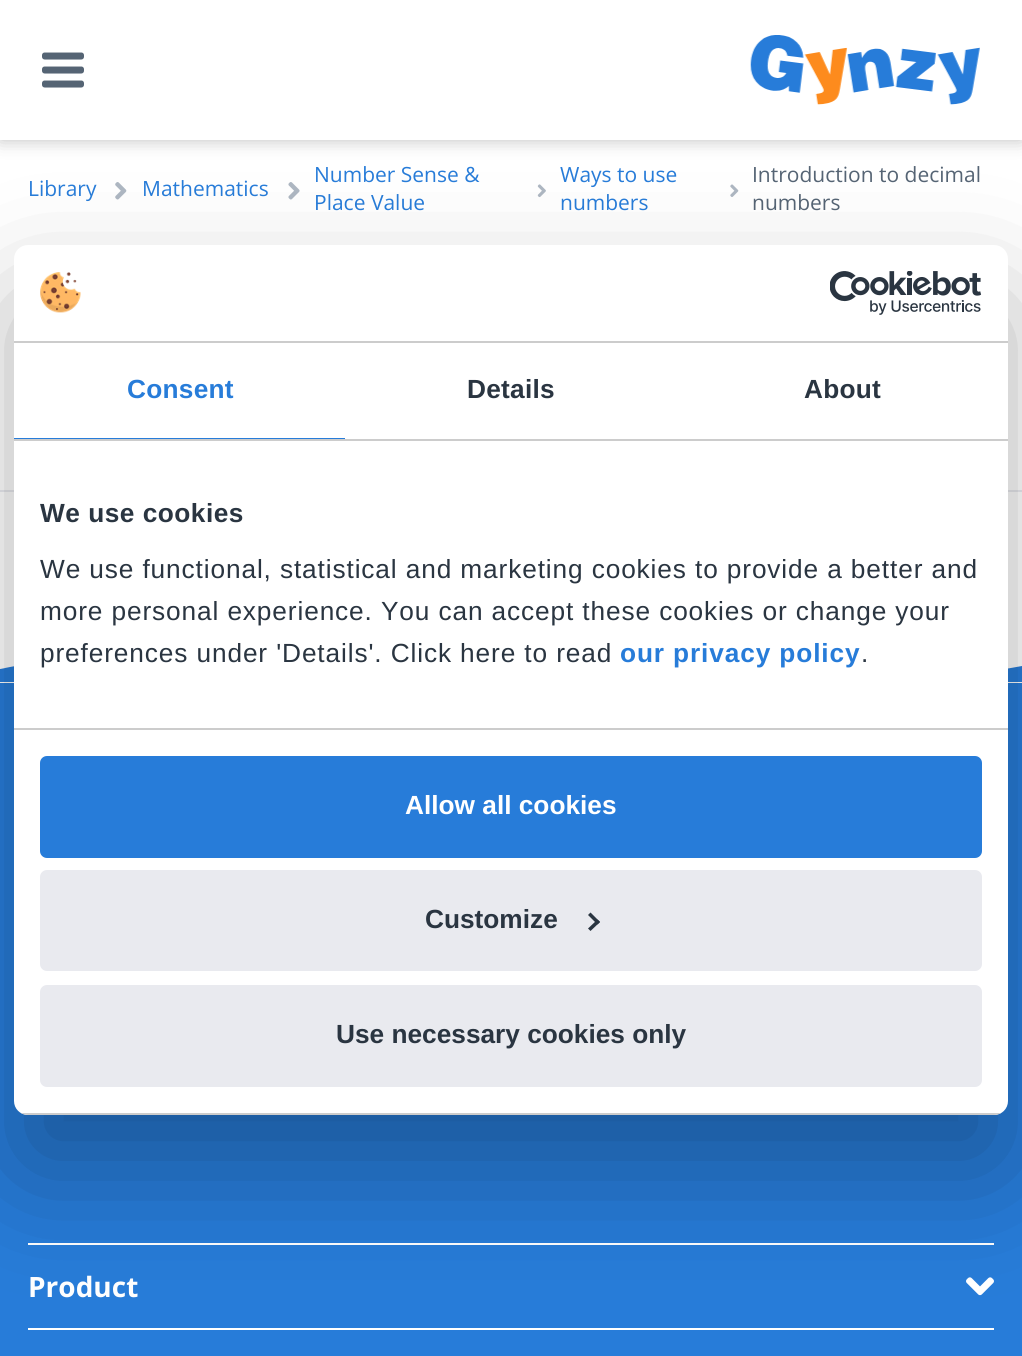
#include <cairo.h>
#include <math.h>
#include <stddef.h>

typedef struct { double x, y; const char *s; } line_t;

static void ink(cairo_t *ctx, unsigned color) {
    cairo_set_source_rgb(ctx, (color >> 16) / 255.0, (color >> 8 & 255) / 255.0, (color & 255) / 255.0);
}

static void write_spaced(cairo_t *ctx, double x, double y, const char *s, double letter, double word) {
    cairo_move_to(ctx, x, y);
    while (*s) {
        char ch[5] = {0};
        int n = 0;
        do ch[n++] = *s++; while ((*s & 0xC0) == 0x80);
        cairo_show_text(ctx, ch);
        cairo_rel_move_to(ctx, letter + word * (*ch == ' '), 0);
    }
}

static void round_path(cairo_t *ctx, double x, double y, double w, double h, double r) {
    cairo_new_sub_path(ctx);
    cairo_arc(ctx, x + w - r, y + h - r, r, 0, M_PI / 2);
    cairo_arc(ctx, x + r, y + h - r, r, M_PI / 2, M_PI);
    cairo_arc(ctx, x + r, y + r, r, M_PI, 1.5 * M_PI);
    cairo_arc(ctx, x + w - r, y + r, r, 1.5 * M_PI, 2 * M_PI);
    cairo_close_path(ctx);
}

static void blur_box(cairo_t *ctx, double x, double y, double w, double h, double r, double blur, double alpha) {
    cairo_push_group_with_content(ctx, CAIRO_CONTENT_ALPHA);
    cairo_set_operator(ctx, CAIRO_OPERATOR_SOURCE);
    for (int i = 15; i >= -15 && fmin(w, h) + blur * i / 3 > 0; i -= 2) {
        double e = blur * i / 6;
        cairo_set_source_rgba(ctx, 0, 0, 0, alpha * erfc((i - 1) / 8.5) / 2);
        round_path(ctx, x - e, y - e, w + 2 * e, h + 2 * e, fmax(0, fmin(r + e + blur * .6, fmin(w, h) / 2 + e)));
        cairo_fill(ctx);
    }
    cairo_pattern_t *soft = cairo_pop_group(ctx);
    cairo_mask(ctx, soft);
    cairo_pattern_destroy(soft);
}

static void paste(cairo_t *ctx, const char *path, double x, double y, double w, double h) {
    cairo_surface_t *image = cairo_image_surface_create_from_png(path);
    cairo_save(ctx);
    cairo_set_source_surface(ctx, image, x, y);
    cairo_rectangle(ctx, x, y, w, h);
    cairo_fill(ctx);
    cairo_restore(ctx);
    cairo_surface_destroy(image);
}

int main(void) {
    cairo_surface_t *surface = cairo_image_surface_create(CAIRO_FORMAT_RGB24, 1022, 1356);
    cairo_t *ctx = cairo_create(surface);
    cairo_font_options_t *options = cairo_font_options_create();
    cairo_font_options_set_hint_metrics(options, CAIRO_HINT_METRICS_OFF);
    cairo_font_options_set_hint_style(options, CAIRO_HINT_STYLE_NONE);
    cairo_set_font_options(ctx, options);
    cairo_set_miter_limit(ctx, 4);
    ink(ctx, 0xFFFFFF);
    cairo_paint(ctx);
    ink(ctx, 0x000000);
    blur_box(ctx, 0, 0, 1022, 140, 0, 9, 0.25);
    ink(ctx, 0xFFFFFF);
    cairo_rectangle(ctx, 0, 0, 1022, 140);
    cairo_fill(ctx);
    paste(ctx, "media/1.png", 42, 52, 42, 36);
    paste(ctx, "media/2.png", 750, 35, 230, 70);
    ink(ctx, 0xE9EAEF);
    cairo_rectangle(ctx, 0, 490, 1022, 2);
    cairo_fill(ctx);
    cairo_select_font_face(ctx, "Open Sans", CAIRO_FONT_SLANT_NORMAL, CAIRO_FONT_WEIGHT_NORMAL);
    cairo_set_font_size(ctx, 21);
    ink(ctx, 0x277CD9);
    cairo_move_to(ctx, 28, 196);
    cairo_show_text(ctx, "Library");
    paste(ctx, "media/3.png", 115, 182, 12, 18);
    cairo_move_to(ctx, 142, 196);
    cairo_show_text(ctx, "Mathematics");
    paste(ctx, "media/4.png", 288, 182, 12, 18);
    cairo_move_to(ctx, 314, 182);
    cairo_show_text(ctx, "Number Sense &");
    cairo_move_to(ctx, 314, 210);
    cairo_show_text(ctx, "Place Value");
    paste(ctx, "media/5.png", 537, 184, 9, 14);
    cairo_move_to(ctx, 560, 182);
    cairo_show_text(ctx, "Ways to use");
    cairo_move_to(ctx, 560, 210);
    cairo_show_text(ctx, "numbers");
    paste(ctx, "media/6.png", 730, 184, 9, 13);
    ink(ctx, 0x556474);
    cairo_move_to(ctx, 752, 182);
    cairo_show_text(ctx, "Introduction to decimal");
    cairo_move_to(ctx, 752, 210);
    cairo_show_text(ctx, "numbers");
    ink(ctx, 0x277CD9);
    cairo_new_path(ctx);
    cairo_move_to(ctx, 1022, 682);
    cairo_line_to(ctx, 0, 682);
    cairo_line_to(ctx, 0, 669);
    cairo_curve_to(ctx, 58, 657, 118, 653, 178, 651);
    cairo_curve_to(ctx, 237, 649, 296, 650, 355, 653);
    cairo_curve_to(ctx, 448, 659, 541, 670, 635, 677);
    cairo_curve_to(ctx, 710, 682, 785, 683, 861, 680);
    cairo_curve_to(ctx, 914, 679, 969, 676, 1022, 666);
    cairo_close_path(ctx);
    cairo_fill(ctx);
    cairo_rectangle(ctx, 0, 683, 1022, 673);
    cairo_fill(ctx);
    ink(ctx, 0xFFFFFF);
    cairo_rectangle(ctx, 28, 1243, 966, 2);
    cairo_fill(ctx);
    cairo_select_font_face(ctx, "Open Sans", CAIRO_FONT_SLANT_NORMAL, CAIRO_FONT_WEIGHT_BOLD);
    cairo_set_font_size(ctx, 28);
    cairo_move_to(ctx, 28, 1297);
    cairo_show_text(ctx, "Product");
    paste(ctx, "media/7.png", 966, 1277, 28, 19);
    cairo_rectangle(ctx, 28, 1328, 966, 2);
    cairo_fill(ctx);
    ink(ctx, 0x000000);
    blur_box(ctx, 14, 301, 994, 870, 14, 59.5, 0.3);
    ink(ctx, 0xFFFFFF);
    round_path(ctx, 14, 245, 994, 870, 14);
    cairo_fill(ctx);
    ink(ctx, 0xCCCCCC);
    cairo_rectangle(ctx, 14, 341, 994, 2);
    cairo_fill(ctx);
    paste(ctx, "media/8.png", 40, 272, 41, 41);
    paste(ctx, "media/9.png", 830, 271, 152, 44);
    cairo_rectangle(ctx, 14, 439, 994, 2);
    cairo_fill(ctx);
    ink(ctx, 0x277CD9);
    cairo_rectangle(ctx, 14, 438, 331, 1);
    cairo_fill(ctx);
    cairo_select_font_face(ctx, "Liberation Sans", CAIRO_FONT_SLANT_NORMAL, CAIRO_FONT_WEIGHT_BOLD);
    cairo_set_font_size(ctx, 26.25);
    write_spaced(ctx, 127, 398, "Consent", 0.25, 0);
    ink(ctx, 0x2A3541);
    write_spaced(ctx, 467, 398, "Details", 0.25, 0);
    write_spaced(ctx, 804, 398, "About", 0.25, 0);
    ink(ctx, 0xCCCCCC);
    cairo_rectangle(ctx, 14, 728, 994, 2);
    cairo_fill(ctx);
    ink(ctx, 0x2A3541);
    write_spaced(ctx, 40, 522, "We use cookies", 0.5, 0);
    cairo_select_font_face(ctx, "Liberation Sans", CAIRO_FONT_SLANT_NORMAL, CAIRO_FONT_WEIGHT_NORMAL);
    {
        static const line_t items[] = {
            {40, 578, "We use functional, statistical and marketing cookies to provide a better and"},
            {40, 620, "more personal experience. You can accept these cookies or change your"},
            {40, 662, "preferences under 'Details'. Click here to read"},
        };
        for (size_t i = 0; i < sizeof items / sizeof *items; i++) {
            write_spaced(ctx, items[i].x, items[i].y, items[i].s, 0.88, 0);
        }
    }
    cairo_select_font_face(ctx, "Liberation Sans", CAIRO_FONT_SLANT_NORMAL, CAIRO_FONT_WEIGHT_BOLD);
    ink(ctx, 0x277CD9);
    write_spaced(ctx, 620, 662, "our privacy policy", 0.88, 0);
    cairo_select_font_face(ctx, "Liberation Sans", CAIRO_FONT_SLANT_NORMAL, CAIRO_FONT_WEIGHT_NORMAL);
    ink(ctx, 0x2A3541);
    write_spaced(ctx, 861, 662, ".", 0.88, 0);
    cairo_save(ctx);
    round_path(ctx, 14, 245, 994, 870, 14);
    cairo_clip(ctx);
    ink(ctx, 0xCCCCCC);
    cairo_rectangle(ctx, 14, 1113, 994, 2);
    cairo_fill(ctx);
    cairo_restore(ctx);
    ink(ctx, 0x277CD9);
    round_path(ctx, 42, 758, 938, 98, 5);
    cairo_fill_preserve(ctx);
    cairo_set_line_width(ctx, 4);
    cairo_stroke(ctx);
    cairo_select_font_face(ctx, "Liberation Sans", CAIRO_FONT_SLANT_NORMAL, CAIRO_FONT_WEIGHT_BOLD);
    ink(ctx, 0xFFFFFF);
    cairo_move_to(ctx, 405, 814);
    cairo_show_text(ctx, "Allow all cookies");
    ink(ctx, 0xE9EAEF);
    round_path(ctx, 42, 872, 938, 97, 5);
    cairo_fill_preserve(ctx);
    cairo_stroke(ctx);
    ink(ctx, 0x2A3541);
    cairo_move_to(ctx, 425, 928);
    cairo_show_text(ctx, "Customize");
    cairo_new_path(ctx);
    cairo_move_to(ctx, 590.5, 912.5);
    cairo_line_to(ctx, 600, 922);
    cairo_line_to(ctx, 597.5, 924.5);
    cairo_line_to(ctx, 588, 915);
    cairo_close_path(ctx);
    cairo_fill(ctx);
    cairo_new_path(ctx);
    cairo_move_to(ctx, 597.5, 919.5);
    cairo_line_to(ctx, 600, 922);
    cairo_line_to(ctx, 590.5, 931);
    cairo_line_to(ctx, 588, 928.5);
    cairo_close_path(ctx);
    cairo_fill(ctx);
    ink(ctx, 0xE9EAEF);
    round_path(ctx, 42, 987, 938, 98, 5);
    cairo_fill_preserve(ctx);
    cairo_stroke(ctx);
    ink(ctx, 0x2A3541);
    cairo_move_to(ctx, 336, 1043);
    cairo_show_text(ctx, "Use necessary cookies only");
    cairo_surface_write_to_png(surface, "image.png");
    cairo_font_options_destroy(options);
    cairo_destroy(ctx);
    cairo_surface_destroy(surface);
    return 0;
}
